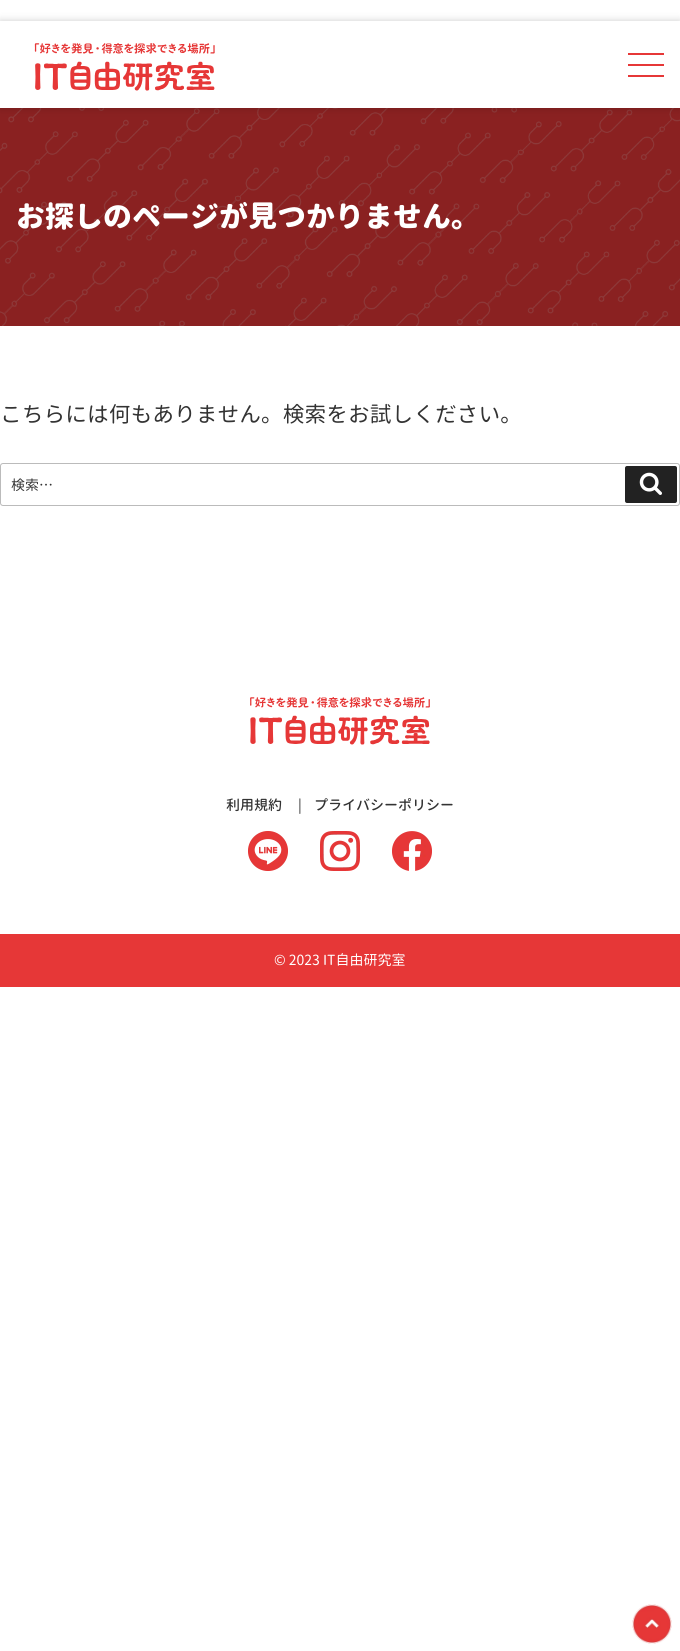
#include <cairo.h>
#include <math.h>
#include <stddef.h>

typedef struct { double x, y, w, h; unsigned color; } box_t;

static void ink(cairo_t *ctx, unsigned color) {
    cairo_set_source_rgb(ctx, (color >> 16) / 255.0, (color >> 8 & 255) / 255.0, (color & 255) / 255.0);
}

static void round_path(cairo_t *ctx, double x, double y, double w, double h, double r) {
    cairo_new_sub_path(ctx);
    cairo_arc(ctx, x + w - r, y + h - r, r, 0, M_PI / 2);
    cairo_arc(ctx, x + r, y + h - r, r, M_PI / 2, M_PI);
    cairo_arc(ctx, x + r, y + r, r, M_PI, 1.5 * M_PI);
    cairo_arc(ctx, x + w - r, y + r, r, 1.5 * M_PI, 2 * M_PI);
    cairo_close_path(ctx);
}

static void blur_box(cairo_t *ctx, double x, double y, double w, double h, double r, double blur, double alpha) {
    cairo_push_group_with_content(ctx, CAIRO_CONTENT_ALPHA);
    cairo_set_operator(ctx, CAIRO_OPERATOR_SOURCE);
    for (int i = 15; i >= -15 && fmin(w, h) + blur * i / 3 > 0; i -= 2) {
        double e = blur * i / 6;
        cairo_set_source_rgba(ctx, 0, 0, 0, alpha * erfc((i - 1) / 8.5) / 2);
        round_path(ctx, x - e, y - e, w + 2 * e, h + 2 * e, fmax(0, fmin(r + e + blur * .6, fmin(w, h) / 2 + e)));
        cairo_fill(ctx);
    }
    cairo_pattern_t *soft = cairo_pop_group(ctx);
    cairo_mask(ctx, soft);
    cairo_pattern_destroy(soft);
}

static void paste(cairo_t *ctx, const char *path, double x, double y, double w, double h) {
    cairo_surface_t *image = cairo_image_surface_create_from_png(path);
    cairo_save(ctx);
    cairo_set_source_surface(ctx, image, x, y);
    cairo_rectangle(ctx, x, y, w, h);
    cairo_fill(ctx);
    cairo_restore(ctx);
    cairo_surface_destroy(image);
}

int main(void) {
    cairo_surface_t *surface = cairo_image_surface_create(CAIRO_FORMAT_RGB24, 680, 1651);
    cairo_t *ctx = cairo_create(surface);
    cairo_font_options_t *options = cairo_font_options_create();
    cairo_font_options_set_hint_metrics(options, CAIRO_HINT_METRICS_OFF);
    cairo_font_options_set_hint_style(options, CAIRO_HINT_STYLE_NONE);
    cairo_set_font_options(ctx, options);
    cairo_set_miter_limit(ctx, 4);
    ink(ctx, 0xFFFFFF);
    cairo_paint(ctx);
    ink(ctx, 0x8A2121);
    cairo_rectangle(ctx, 0, 108, 680, 218);
    cairo_fill(ctx);
    paste(ctx, "media/2.png", 0, 108, 680, 218);
    cairo_save(ctx);
    cairo_set_fill_rule(ctx, CAIRO_FILL_RULE_EVEN_ODD);
    cairo_new_path(ctx);
    cairo_move_to(ctx, 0, 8);
    cairo_line_to(ctx, 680, 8);
    cairo_line_to(ctx, 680, 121);
    cairo_line_to(ctx, 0, 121);
    cairo_close_path(ctx);
    cairo_move_to(ctx, 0, 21);
    cairo_line_to(ctx, 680, 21);
    cairo_line_to(ctx, 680, 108);
    cairo_line_to(ctx, 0, 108);
    cairo_close_path(ctx);
    cairo_clip(ctx);
    ink(ctx, 0x000000);
    blur_box(ctx, 0, 21, 680, 87, 0, 4, 0.2);
    cairo_restore(ctx);
    paste(ctx, "media/1.png", 34, 43, 181, 48);
    {
        static const box_t items[] = {
            {628, 64, 36, 2, 0xE63737},
            {628, 53, 36, 2, 0xE63737},
            {628, 75, 36, 2, 0xE63737},
        };
        for (size_t i = 0; i < sizeof items / sizeof *items; i++) {
            ink(ctx, items[i].color);
            cairo_rectangle(ctx, items[i].x, items[i].y, items[i].w, items[i].h);
            cairo_fill(ctx);
        }
    }
    cairo_select_font_face(ctx, "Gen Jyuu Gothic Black", CAIRO_FONT_SLANT_NORMAL, CAIRO_FONT_WEIGHT_NORMAL);
    cairo_set_font_size(ctx, 29);
    ink(ctx, 0xFFFFFF);
    cairo_move_to(ctx, 16, 227);
    cairo_show_text(ctx, "お探しのページが見つかりません。");
    cairo_select_font_face(ctx, "Gen Jyuu Gothic", CAIRO_FONT_SLANT_NORMAL, CAIRO_FONT_WEIGHT_NORMAL);
    cairo_set_font_size(ctx, 21.75);
    ink(ctx, 0x333333);
    cairo_move_to(ctx, 0, 422);
    cairo_show_text(ctx, "こちらには何もありません。検索をお試しください。");
    round_path(ctx, 0.5, 463.5, 679, 42, 2.5);
    ink(ctx, 0xBBBBBB);
    cairo_set_line_width(ctx, 1);
    cairo_stroke(ctx);
    cairo_set_font_size(ctx, 14);
    ink(ctx, 0x333333);
    cairo_move_to(ctx, 11, 490);
    cairo_show_text(ctx, "検索…");
    ink(ctx, 0x222222);
    round_path(ctx, 625, 466, 52, 37, 2);
    cairo_fill(ctx);
    paste(ctx, "media/3.png", 639, 472, 23, 23);
    paste(ctx, "media/4.png", 250, 697, 180, 48);
    cairo_select_font_face(ctx, "Gen Jyuu Gothic Medium", CAIRO_FONT_SLANT_NORMAL, CAIRO_FONT_WEIGHT_NORMAL);
    ink(ctx, 0x333333);
    cairo_move_to(ctx, 226, 810);
    cairo_show_text(ctx, "利用規約");
    cairo_select_font_face(ctx, "Gen Jyuu Gothic", CAIRO_FONT_SLANT_NORMAL, CAIRO_FONT_WEIGHT_NORMAL);
    cairo_move_to(ctx, 298, 810);
    cairo_show_text(ctx, "|");
    cairo_select_font_face(ctx, "Gen Jyuu Gothic Medium", CAIRO_FONT_SLANT_NORMAL, CAIRO_FONT_WEIGHT_NORMAL);
    cairo_move_to(ctx, 314, 810);
    cairo_show_text(ctx, "プライバシーポリシー");
    paste(ctx, "media/5.png", 248, 831, 40, 40);
    paste(ctx, "media/6.png", 320, 831, 40, 40);
    paste(ctx, "media/7.png", 392, 831, 40, 40);
    ink(ctx, 0xE63737);
    cairo_rectangle(ctx, 0, 934, 680, 53);
    cairo_fill(ctx);
    cairo_select_font_face(ctx, "Gen Jyuu Gothic", CAIRO_FONT_SLANT_NORMAL, CAIRO_FONT_WEIGHT_NORMAL);
    ink(ctx, 0xFFFFFF);
    cairo_move_to(ctx, 274, 965);
    cairo_show_text(ctx, "© 2023 IT自由研究室");
    paste(ctx, "media/8.png", 632, 1604, 40, 40);
    cairo_surface_write_to_png(surface, "image.png");
    cairo_font_options_destroy(options);
    cairo_destroy(ctx);
    cairo_surface_destroy(surface);
    return 0;
}
